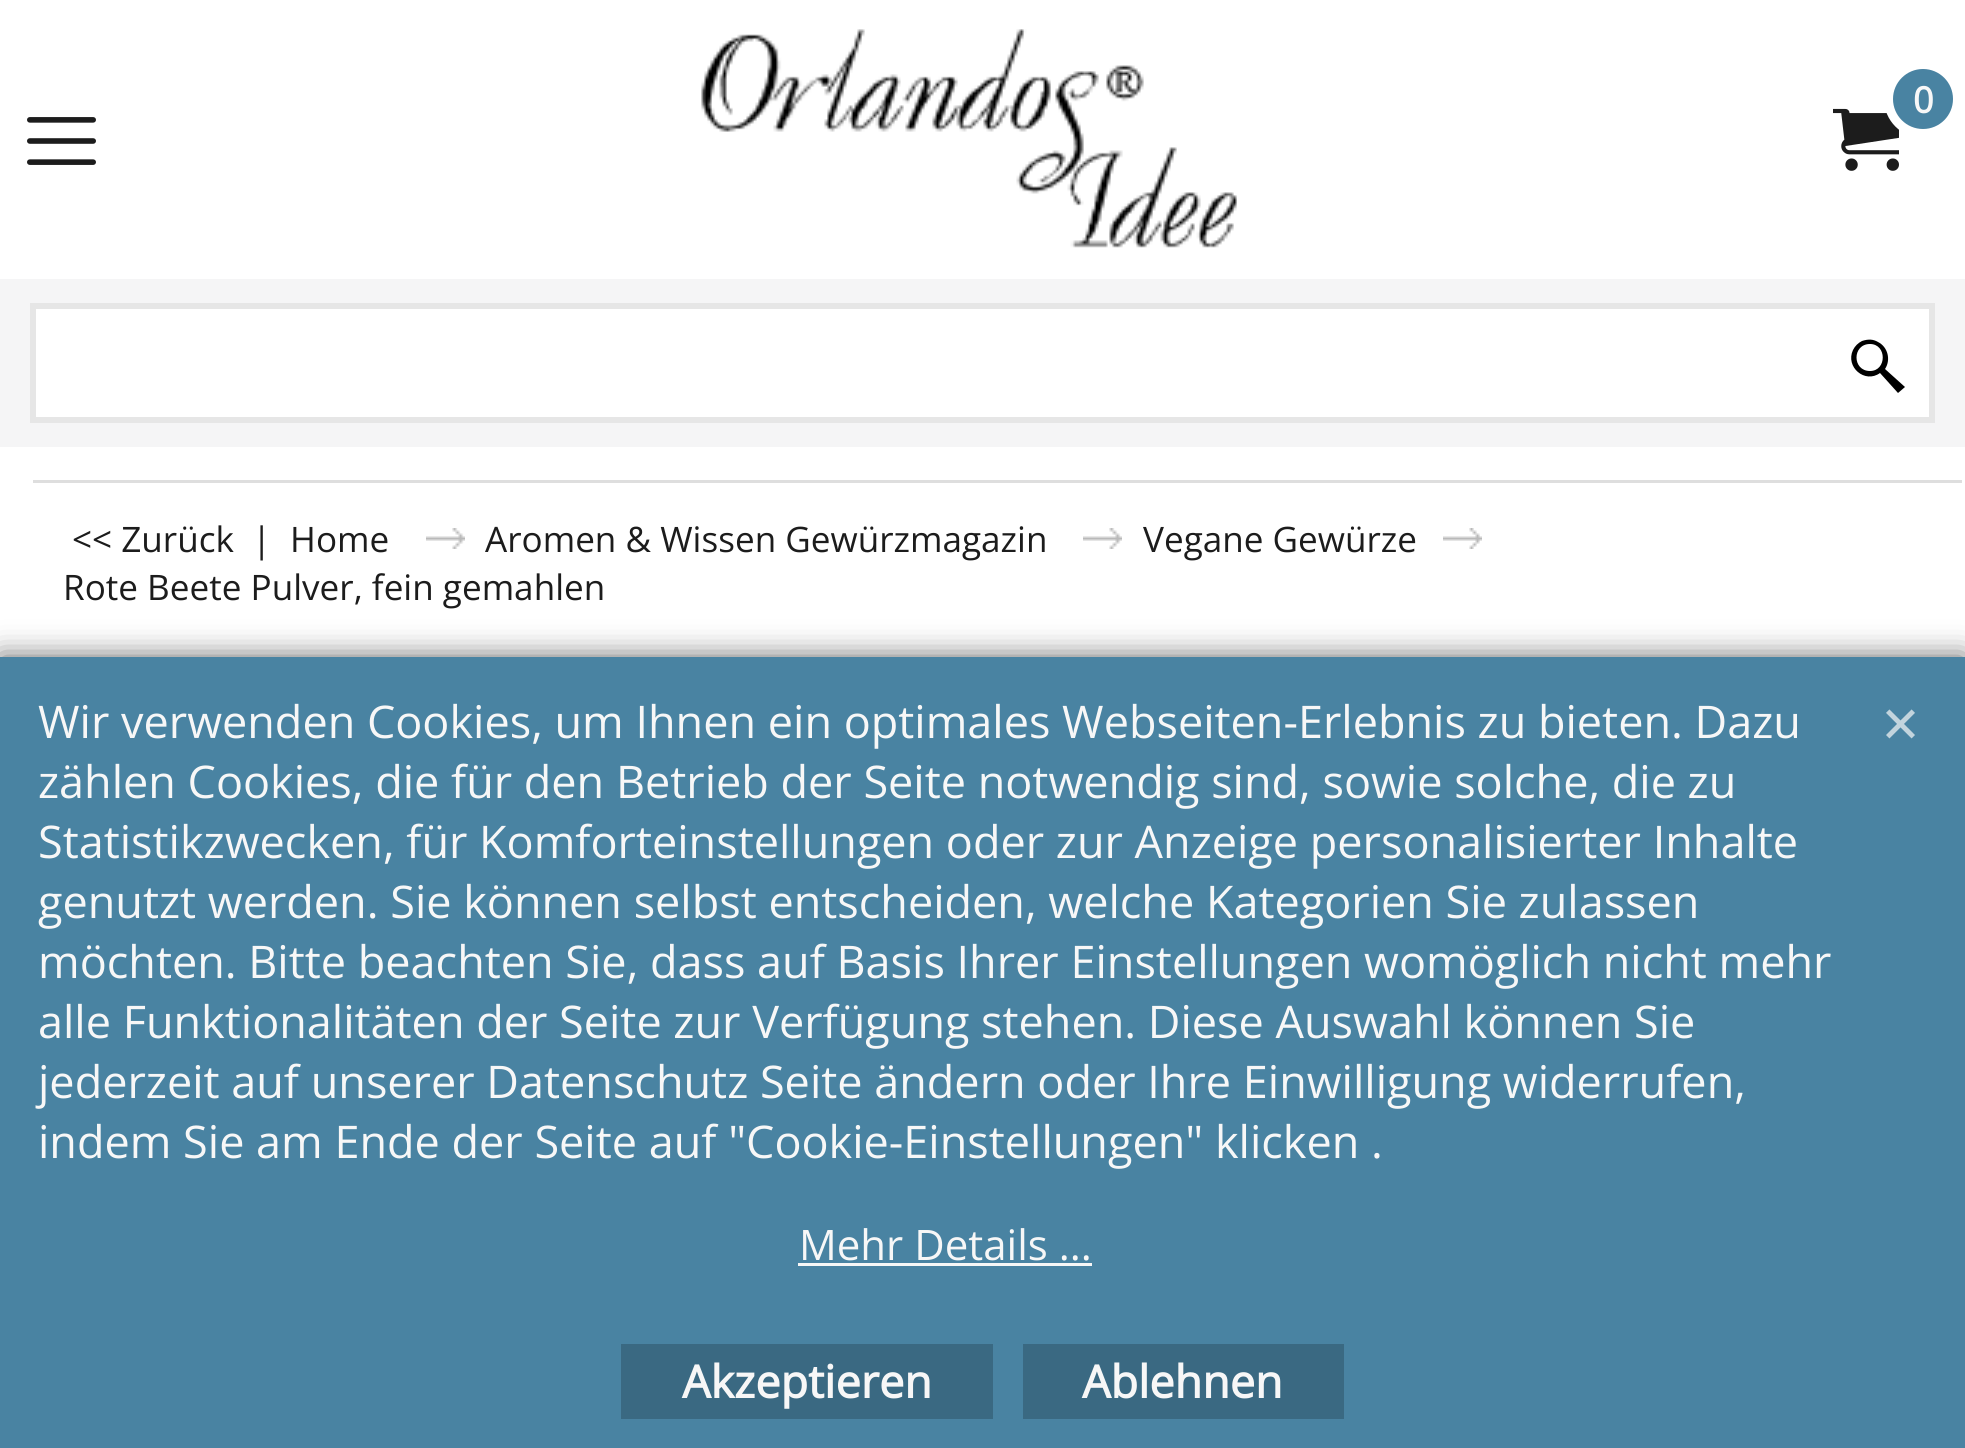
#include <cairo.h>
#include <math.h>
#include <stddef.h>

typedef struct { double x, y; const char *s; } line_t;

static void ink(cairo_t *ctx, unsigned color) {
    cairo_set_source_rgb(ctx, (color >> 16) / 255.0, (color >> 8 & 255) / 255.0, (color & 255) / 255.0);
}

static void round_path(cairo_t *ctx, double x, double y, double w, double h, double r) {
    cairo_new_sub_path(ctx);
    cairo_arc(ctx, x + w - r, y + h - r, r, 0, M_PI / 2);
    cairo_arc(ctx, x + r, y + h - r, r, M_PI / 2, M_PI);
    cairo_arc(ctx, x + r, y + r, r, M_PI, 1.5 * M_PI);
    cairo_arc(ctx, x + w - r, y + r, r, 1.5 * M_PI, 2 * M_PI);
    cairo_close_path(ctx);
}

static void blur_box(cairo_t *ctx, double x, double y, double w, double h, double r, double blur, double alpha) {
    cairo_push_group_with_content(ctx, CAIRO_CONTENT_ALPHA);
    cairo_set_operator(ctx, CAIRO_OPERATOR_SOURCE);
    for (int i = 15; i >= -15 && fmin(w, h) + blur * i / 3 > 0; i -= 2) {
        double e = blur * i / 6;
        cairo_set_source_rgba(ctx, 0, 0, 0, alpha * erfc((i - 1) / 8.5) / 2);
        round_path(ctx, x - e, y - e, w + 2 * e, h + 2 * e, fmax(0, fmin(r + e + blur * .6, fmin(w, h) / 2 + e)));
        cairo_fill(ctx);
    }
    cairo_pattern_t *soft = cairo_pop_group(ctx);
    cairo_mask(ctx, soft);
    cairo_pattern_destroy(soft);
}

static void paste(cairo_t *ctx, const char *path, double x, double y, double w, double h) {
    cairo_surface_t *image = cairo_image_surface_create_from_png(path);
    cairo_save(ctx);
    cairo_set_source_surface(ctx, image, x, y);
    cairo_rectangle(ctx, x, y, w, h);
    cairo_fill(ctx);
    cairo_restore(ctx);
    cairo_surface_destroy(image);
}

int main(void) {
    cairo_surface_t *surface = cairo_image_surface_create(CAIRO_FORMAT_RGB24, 1965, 1448);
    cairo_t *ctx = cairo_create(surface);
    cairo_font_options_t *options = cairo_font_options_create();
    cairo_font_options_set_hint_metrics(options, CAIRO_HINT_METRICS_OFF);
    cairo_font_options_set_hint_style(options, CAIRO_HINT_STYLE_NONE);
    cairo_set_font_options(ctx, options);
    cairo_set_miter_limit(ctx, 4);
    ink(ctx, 0xFFFFFF);
    cairo_paint(ctx);
    paste(ctx, "media/1.png", 701, 29, 536, 219);
    paste(ctx, "media/2.png", 1833, 108, 66, 63);
    ink(ctx, 0x4983A2);
    cairo_arc(ctx, 1923, 99, 34.5, 0, 2 * M_PI);
    cairo_fill_preserve(ctx);
    ink(ctx, 0xFFFFFF);
    cairo_set_line_width(ctx, 9);
    cairo_stroke(ctx);
    cairo_select_font_face(ctx, "Open Sans", CAIRO_FONT_SLANT_NORMAL, CAIRO_FONT_WEIGHT_BOLD);
    cairo_set_font_size(ctx, 36);
    ink(ctx, 0xF7F7F7);
    cairo_move_to(ctx, 1913, 113);
    cairo_show_text(ctx, "0");
    paste(ctx, "media/3.png", 27, 117, 69, 48);
    ink(ctx, 0xF5F5F6);
    cairo_rectangle(ctx, 0, 279, 1965, 168);
    cairo_fill(ctx);
    ink(ctx, 0xFFFFFF);
    cairo_rectangle(ctx, 33, 306, 1899, 114);
    cairo_fill_preserve(ctx);
    ink(ctx, 0xE6E6E6);
    cairo_set_line_width(ctx, 6);
    cairo_stroke(ctx);
    ink(ctx, 0x000000);
    cairo_new_path(ctx);
    cairo_move_to(ctx, 1885, 369);
    cairo_curve_to(ctx, 1891, 360, 1888, 347, 1878, 342);
    cairo_curve_to(ctx, 1873, 339, 1868, 339, 1862, 341);
    cairo_curve_to(ctx, 1858, 343, 1855, 346, 1853, 350);
    cairo_curve_to(ctx, 1845, 367, 1865, 384, 1880, 373);
    cairo_line_to(ctx, 1898, 393);
    cairo_line_to(ctx, 1905, 387);
    cairo_close_path(ctx);
    cairo_move_to(ctx, 1870, 371);
    cairo_curve_to(ctx, 1852, 371, 1852, 344, 1870, 344);
    cairo_curve_to(ctx, 1887, 344, 1887, 371, 1870, 371);
    cairo_close_path(ctx);
    cairo_fill(ctx);
    ink(ctx, 0xDEDEDE);
    cairo_rectangle(ctx, 33, 480, 1929, 3);
    cairo_fill(ctx);
    cairo_select_font_face(ctx, "Open Sans", CAIRO_FONT_SLANT_NORMAL, CAIRO_FONT_WEIGHT_NORMAL);
    cairo_set_font_size(ctx, 35.1);
    ink(ctx, 0x1C1C1C);
    {
        static const line_t items[] = {
            {72, 552, "<< Zurück"},
            {252, 552, "|"},
            {290, 552, "Home"},
        };
        for (size_t i = 0; i < sizeof items / sizeof *items; i++) {
            cairo_move_to(ctx, items[i].x, items[i].y);
            cairo_show_text(ctx, items[i].s);
        }
    }
    paste(ctx, "media/4.png", 426, 528, 39, 21);
    cairo_move_to(ctx, 485, 552);
    cairo_show_text(ctx, "Aromen & Wissen Gewürzmagazin");
    paste(ctx, "media/4.png", 1083, 528, 39, 21);
    cairo_move_to(ctx, 1143, 552);
    cairo_show_text(ctx, "Vegane Gewürze");
    paste(ctx, "media/5.png", 1443, 528, 39, 21);
    cairo_move_to(ctx, 63, 600);
    cairo_show_text(ctx, "Rote Beete Pulver, fein gemahlen");
    ink(ctx, 0x666666);
    blur_box(ctx, 0, 657, 1965, 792, 0, 15, 1);
    ink(ctx, 0x4983A2);
    cairo_rectangle(ctx, 0, 657, 1965, 791);
    cairo_fill(ctx);
    cairo_set_font_size(ctx, 45);
    ink(ctx, 0xF7F7F7);
    {
        static const line_t items[] = {
            {38, 738, "Wir verwenden Cookies, um Ihnen ein optimales Webseiten-Erlebnis zu bieten. Dazu"},
            {38, 798, "zählen Cookies, die für den Betrieb der Seite notwendig sind, sowie solche, die zu"},
            {38, 858, "Statistikzwecken, für Komforteinstellungen oder zur Anzeige personalisierter Inhalte"},
            {38, 918, "genutzt werden. Sie können selbst entscheiden, welche Kategorien Sie zulassen"},
            {38, 978, "möchten. Bitte beachten Sie, dass auf Basis Ihrer Einstellungen womöglich nicht mehr"},
            {38, 1038, "alle Funktionalitäten der Seite zur Verfügung stehen. Diese Auswahl können Sie"},
            {38, 1098, "jederzeit auf unserer Datenschutz Seite ändern oder Ihre Einwilligung widerrufen,"},
            {38, 1158, "indem Sie am Ende der Seite auf \"Cookie-Einstellungen\" klicken ."},
        };
        for (size_t i = 0; i < sizeof items / sizeof *items; i++) {
            cairo_move_to(ctx, items[i].x, items[i].y);
            cairo_show_text(ctx, items[i].s);
        }
    }
    cairo_set_font_size(ctx, 42);
    cairo_move_to(ctx, 799, 1260);
    cairo_show_text(ctx, "Mehr Details ...");
    cairo_rectangle(ctx, 798, 1263, 294, 3);
    cairo_fill(ctx);
    paste(ctx, "media/6.png", 1886, 709, 29, 30);
    ink(ctx, 0x3A6982);
    cairo_rectangle(ctx, 621, 1344, 372, 75);
    cairo_fill(ctx);
    cairo_select_font_face(ctx, "Open Sans", CAIRO_FONT_SLANT_NORMAL, CAIRO_FONT_WEIGHT_BOLD);
    cairo_set_font_size(ctx, 45);
    ink(ctx, 0xF7F7F7);
    cairo_move_to(ctx, 682, 1398);
    cairo_show_text(ctx, "Akzeptieren");
    ink(ctx, 0x3A6982);
    cairo_rectangle(ctx, 1023, 1344, 321, 75);
    cairo_fill(ctx);
    ink(ctx, 0xF7F7F7);
    cairo_move_to(ctx, 1082, 1398);
    cairo_show_text(ctx, "Ablehnen");
    cairo_surface_write_to_png(surface, "image.png");
    cairo_font_options_destroy(options);
    cairo_destroy(ctx);
    cairo_surface_destroy(surface);
    return 0;
}
